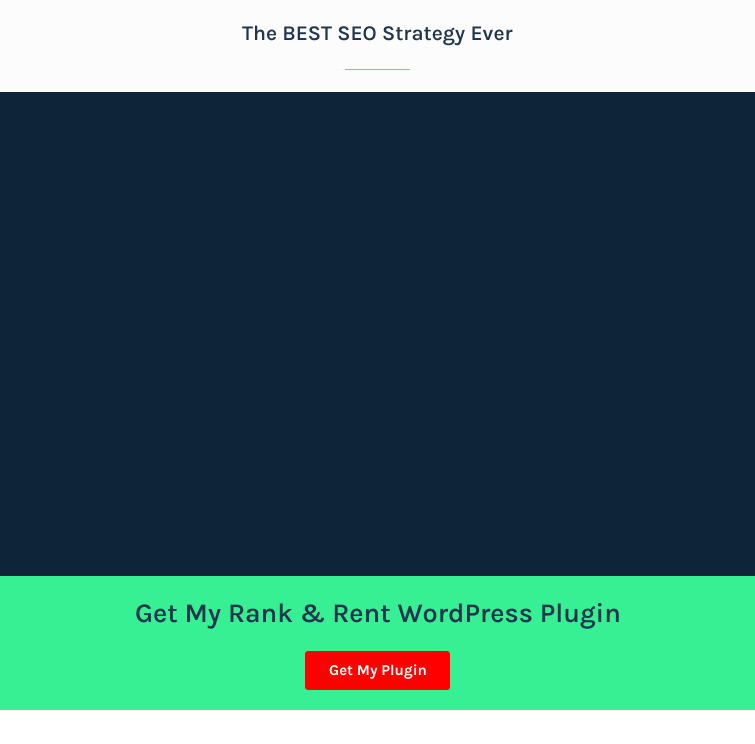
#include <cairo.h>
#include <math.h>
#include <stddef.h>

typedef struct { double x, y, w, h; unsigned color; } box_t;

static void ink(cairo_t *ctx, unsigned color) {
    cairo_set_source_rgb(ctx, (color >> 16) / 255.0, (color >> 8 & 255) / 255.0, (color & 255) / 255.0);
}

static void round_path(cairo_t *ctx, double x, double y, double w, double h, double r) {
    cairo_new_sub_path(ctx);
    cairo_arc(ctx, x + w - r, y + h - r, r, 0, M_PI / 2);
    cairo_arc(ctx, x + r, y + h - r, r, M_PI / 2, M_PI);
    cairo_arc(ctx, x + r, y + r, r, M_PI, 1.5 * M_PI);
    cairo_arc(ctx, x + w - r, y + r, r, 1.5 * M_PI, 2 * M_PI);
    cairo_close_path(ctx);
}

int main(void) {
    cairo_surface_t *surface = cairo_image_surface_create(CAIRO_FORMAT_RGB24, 755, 744);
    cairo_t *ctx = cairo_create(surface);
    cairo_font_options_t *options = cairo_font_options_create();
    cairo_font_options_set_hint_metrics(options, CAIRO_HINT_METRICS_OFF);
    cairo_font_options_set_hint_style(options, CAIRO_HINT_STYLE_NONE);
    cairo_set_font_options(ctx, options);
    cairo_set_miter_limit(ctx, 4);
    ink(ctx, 0xFFFFFF);
    cairo_paint(ctx);
    ink(ctx, 0xFCFCFC);
    cairo_rectangle(ctx, 0, 0, 755, 92);
    cairo_fill(ctx);
    cairo_select_font_face(ctx, "Karla SemiBold", CAIRO_FONT_SLANT_NORMAL, CAIRO_FONT_WEIGHT_NORMAL);
    cairo_set_font_size(ctx, 21);
    ink(ctx, 0x1F364D);
    cairo_move_to(ctx, 242, 40);
    cairo_show_text(ctx, "The BEST SEO Strategy Ever");
    {
        static const box_t items[] = {
            {345, 69, 65, 1, 0x38F094},
            {0, 92, 755, 484, 0x0E2439},
            {0, 576, 755, 134, 0x38F094},
        };
        for (size_t i = 0; i < sizeof items / sizeof *items; i++) {
            ink(ctx, items[i].color);
            cairo_rectangle(ctx, items[i].x, items[i].y, items[i].w, items[i].h);
            cairo_fill(ctx);
        }
    }
    cairo_set_font_size(ctx, 27);
    ink(ctx, 0x1F364D);
    cairo_move_to(ctx, 135, 622);
    cairo_show_text(ctx, "Get My Rank & Rent WordPress Plugin");
    ink(ctx, 0xFF0000);
    round_path(ctx, 305, 651, 145, 39, 3);
    cairo_fill(ctx);
    cairo_select_font_face(ctx, "Karla", CAIRO_FONT_SLANT_NORMAL, CAIRO_FONT_WEIGHT_BOLD);
    cairo_set_font_size(ctx, 15);
    ink(ctx, 0xFFFFFF);
    cairo_move_to(ctx, 329, 675);
    cairo_show_text(ctx, "Get My Plugin");
    cairo_surface_write_to_png(surface, "image.png");
    cairo_font_options_destroy(options);
    cairo_destroy(ctx);
    cairo_surface_destroy(surface);
    return 0;
}
